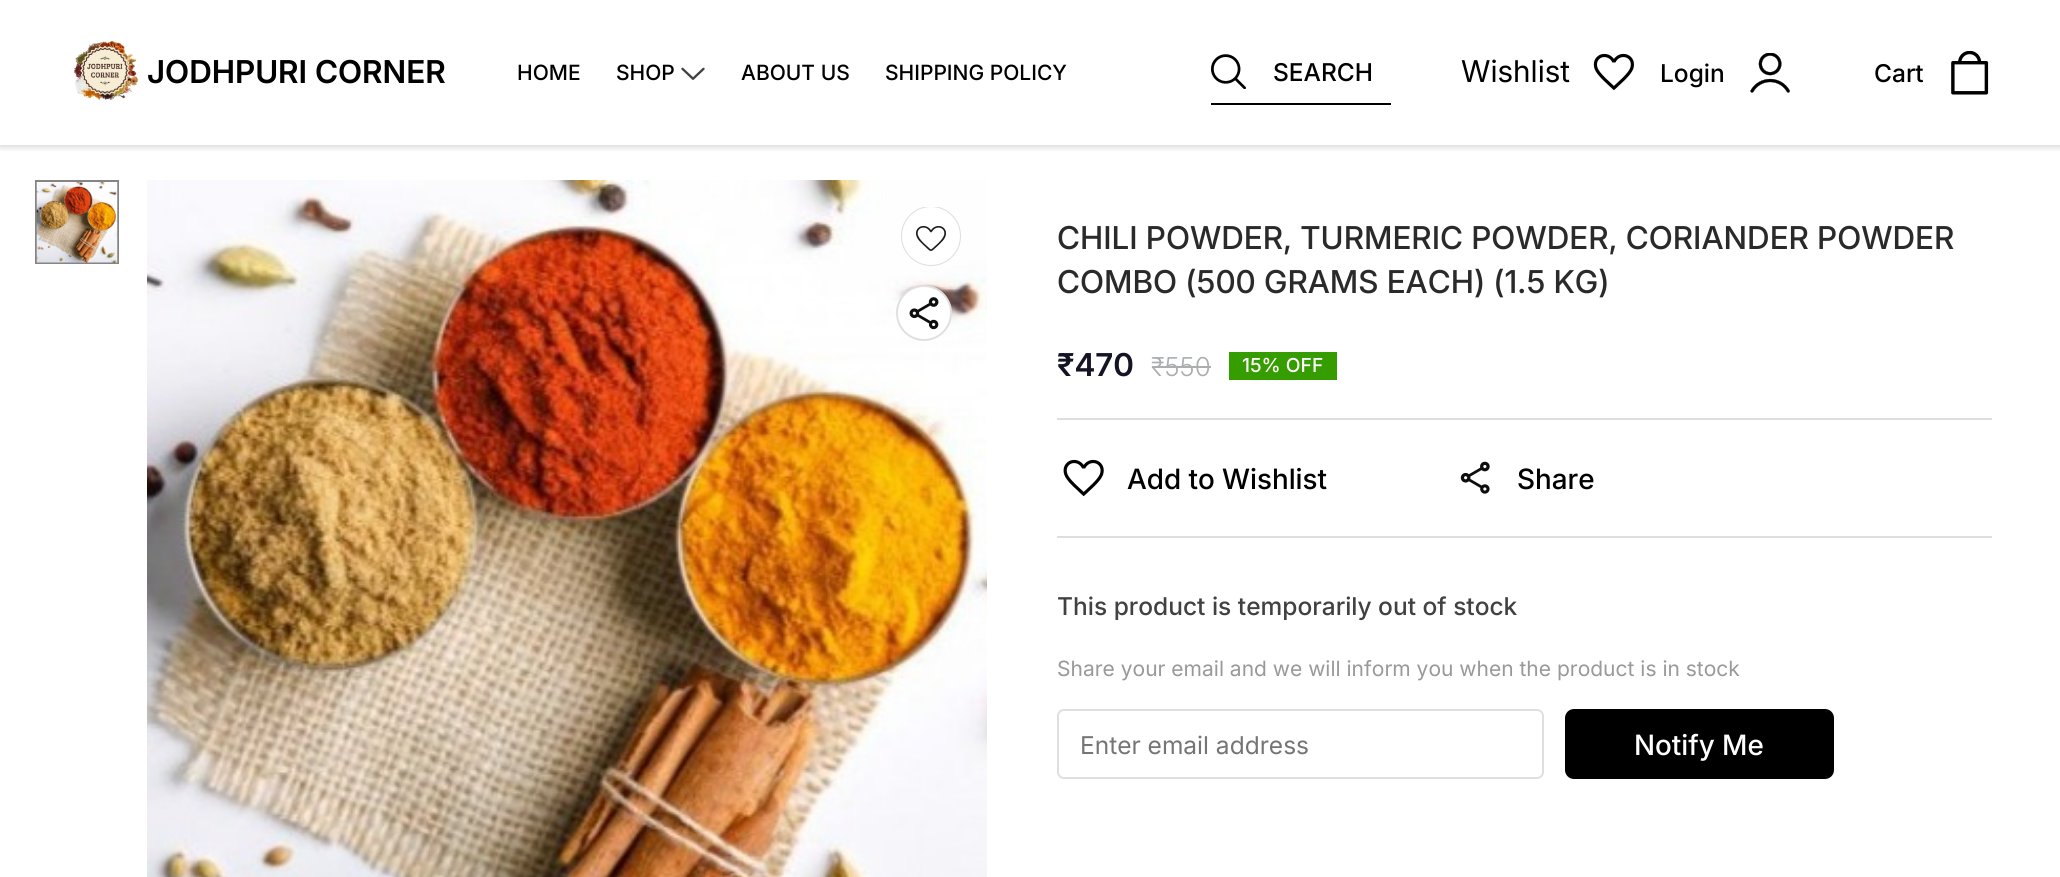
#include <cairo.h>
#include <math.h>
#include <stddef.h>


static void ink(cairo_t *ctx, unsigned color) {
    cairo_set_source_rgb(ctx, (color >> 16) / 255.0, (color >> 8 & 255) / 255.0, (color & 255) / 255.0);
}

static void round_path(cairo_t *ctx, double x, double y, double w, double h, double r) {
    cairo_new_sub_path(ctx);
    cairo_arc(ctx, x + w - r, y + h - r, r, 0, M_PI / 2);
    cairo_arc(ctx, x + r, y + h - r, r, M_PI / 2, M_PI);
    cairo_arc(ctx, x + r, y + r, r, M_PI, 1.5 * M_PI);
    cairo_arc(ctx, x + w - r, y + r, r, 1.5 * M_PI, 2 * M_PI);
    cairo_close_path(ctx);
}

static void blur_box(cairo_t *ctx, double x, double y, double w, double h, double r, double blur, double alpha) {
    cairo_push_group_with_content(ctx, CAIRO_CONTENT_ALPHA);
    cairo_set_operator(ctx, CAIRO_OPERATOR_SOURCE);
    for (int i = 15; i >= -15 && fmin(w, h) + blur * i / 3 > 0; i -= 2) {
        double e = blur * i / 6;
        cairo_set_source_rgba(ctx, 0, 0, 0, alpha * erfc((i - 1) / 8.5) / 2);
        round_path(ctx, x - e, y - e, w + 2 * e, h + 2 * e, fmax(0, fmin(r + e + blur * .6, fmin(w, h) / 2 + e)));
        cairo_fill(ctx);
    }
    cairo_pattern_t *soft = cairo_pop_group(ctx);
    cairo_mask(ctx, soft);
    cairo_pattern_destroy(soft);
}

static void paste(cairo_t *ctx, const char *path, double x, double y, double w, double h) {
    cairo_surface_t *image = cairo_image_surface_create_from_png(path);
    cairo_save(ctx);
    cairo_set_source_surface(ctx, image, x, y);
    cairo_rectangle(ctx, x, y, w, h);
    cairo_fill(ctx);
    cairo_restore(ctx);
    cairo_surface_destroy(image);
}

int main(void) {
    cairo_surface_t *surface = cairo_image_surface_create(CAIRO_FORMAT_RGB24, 2060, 877);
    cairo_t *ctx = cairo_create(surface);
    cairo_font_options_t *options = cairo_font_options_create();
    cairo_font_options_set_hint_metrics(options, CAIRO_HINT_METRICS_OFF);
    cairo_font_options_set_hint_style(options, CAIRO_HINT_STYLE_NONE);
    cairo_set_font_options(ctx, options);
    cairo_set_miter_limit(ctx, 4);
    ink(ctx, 0xFFFFFF);
    cairo_paint(ctx);
    cairo_save(ctx);
    cairo_rectangle(ctx, 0, 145, 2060, 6);
    cairo_clip(ctx);
    ink(ctx, 0x000000);
    blur_box(ctx, 0, 0, 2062, 145, 0, 4.5, 0.25);
    cairo_restore(ctx);
    paste(ctx, "media/1.png", 73, 40, 66, 61);
    cairo_select_font_face(ctx, "Inter SemiBold", CAIRO_FONT_SLANT_NORMAL, CAIRO_FONT_WEIGHT_NORMAL);
    cairo_set_font_size(ctx, 31.5);
    ink(ctx, 0x000000);
    cairo_move_to(ctx, 147, 83);
    cairo_show_text(ctx, "JODHPURI CORNER");
    cairo_select_font_face(ctx, "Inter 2 Medium", CAIRO_FONT_SLANT_NORMAL, CAIRO_FONT_WEIGHT_NORMAL);
    cairo_set_font_size(ctx, 21);
    cairo_move_to(ctx, 517, 80);
    cairo_show_text(ctx, "HOME");
    cairo_move_to(ctx, 616, 80);
    cairo_show_text(ctx, "SHOP");
    paste(ctx, "media/2.png", 681, 67, 24, 13);
    cairo_move_to(ctx, 741, 80);
    cairo_show_text(ctx, "ABOUT US");
    cairo_move_to(ctx, 885, 80);
    cairo_show_text(ctx, "SHIPPING POLICY");
    cairo_rectangle(ctx, 1211, 103, 180, 2);
    cairo_fill(ctx);
    paste(ctx, "media/3.png", 1211, 54, 35, 35);
    cairo_set_font_size(ctx, 24.5);
    cairo_move_to(ctx, 1273, 81);
    cairo_show_text(ctx, "SEARCH");
    cairo_select_font_face(ctx, "Inter 2", CAIRO_FONT_SLANT_NORMAL, CAIRO_FONT_WEIGHT_NORMAL);
    cairo_set_font_size(ctx, 30);
    cairo_move_to(ctx, 1461, 82);
    cairo_show_text(ctx, "Wishlist");
    paste(ctx, "media/4.png", 1593, 53, 41, 38);
    cairo_select_font_face(ctx, "Inter 2 Medium", CAIRO_FONT_SLANT_NORMAL, CAIRO_FONT_WEIGHT_NORMAL);
    cairo_set_font_size(ctx, 24.5);
    cairo_move_to(ctx, 1660, 82);
    cairo_show_text(ctx, "Login");
    paste(ctx, "media/5.png", 1750, 53, 40, 40);
    cairo_move_to(ctx, 1874, 82);
    cairo_show_text(ctx, "Cart");
    paste(ctx, "media/6.png", 1951, 51, 38, 44);
    cairo_rectangle(ctx, 36, 181, 82, 82);
    ink(ctx, 0x858585);
    cairo_stroke(ctx);
    paste(ctx, "media/7.png", 36, 182, 82, 81);
    paste(ctx, "media/8.png", 147, 180, 840, 697);
    paste(ctx, "media/9.png", 901, 207, 60, 59);
    ink(ctx, 0xFFFFFF);
    cairo_arc(ctx, 924, 313, 27, 0, 2 * M_PI);
    cairo_fill_preserve(ctx);
    ink(ctx, 0xE0E0E0);
    cairo_stroke(ctx);
    paste(ctx, "media/10.png", 909, 297, 30, 33);
    cairo_select_font_face(ctx, "Inter Medium", CAIRO_FONT_SLANT_NORMAL, CAIRO_FONT_WEIGHT_NORMAL);
    cairo_set_font_size(ctx, 31.5);
    ink(ctx, 0x2A2A2A);
    cairo_move_to(ctx, 1057, 249);
    cairo_show_text(ctx, "CHILI POWDER, TURMERIC POWDER, CORIANDER POWDER");
    cairo_move_to(ctx, 1057, 293);
    cairo_show_text(ctx, "COMBO (500 GRAMS EACH) (1.5 KG)");
    cairo_select_font_face(ctx, "Inter SemiBold", CAIRO_FONT_SLANT_NORMAL, CAIRO_FONT_WEIGHT_NORMAL);
    ink(ctx, 0x151425);
    cairo_move_to(ctx, 1057, 376);
    cairo_show_text(ctx, "₹470");
    cairo_select_font_face(ctx, "Inter Light", CAIRO_FONT_SLANT_NORMAL, CAIRO_FONT_WEIGHT_NORMAL);
    cairo_set_font_size(ctx, 26);
    ink(ctx, 0xABADAE);
    cairo_move_to(ctx, 1151, 376);
    cairo_show_text(ctx, "₹550");
    cairo_rectangle(ctx, 1152, 366, 59, 2);
    cairo_fill(ctx);
    ink(ctx, 0x369D00);
    cairo_rectangle(ctx, 1229, 352, 108, 28);
    cairo_fill(ctx);
    cairo_select_font_face(ctx, "Inter 2 Medium", CAIRO_FONT_SLANT_NORMAL, CAIRO_FONT_WEIGHT_NORMAL);
    cairo_set_font_size(ctx, 19.25);
    ink(ctx, 0xFFFFFF);
    cairo_move_to(ctx, 1242, 372);
    cairo_show_text(ctx, "15% OFF");
    ink(ctx, 0xDEDEDE);
    cairo_rectangle(ctx, 1057, 418, 935, 2);
    cairo_fill(ctx);
    cairo_rectangle(ctx, 1057, 536, 935, 2);
    cairo_fill(ctx);
    paste(ctx, "media/11.png", 1063, 459, 41, 38);
    cairo_select_font_face(ctx, "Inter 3 Medium", CAIRO_FONT_SLANT_NORMAL, CAIRO_FONT_WEIGHT_NORMAL);
    cairo_set_font_size(ctx, 28);
    ink(ctx, 0x000000);
    cairo_move_to(ctx, 1127, 489);
    cairo_show_text(ctx, "Add to Wishlist");
    paste(ctx, "media/12.png", 1460, 461, 30, 33);
    cairo_move_to(ctx, 1517, 489);
    cairo_show_text(ctx, "Share");
    cairo_select_font_face(ctx, "Inter 2 Medium", CAIRO_FONT_SLANT_NORMAL, CAIRO_FONT_WEIGHT_NORMAL);
    cairo_set_font_size(ctx, 24.5);
    ink(ctx, 0x414141);
    cairo_move_to(ctx, 1057, 615);
    cairo_show_text(ctx, "This product is temporarily out of stock");
    cairo_select_font_face(ctx, "Inter", CAIRO_FONT_SLANT_NORMAL, CAIRO_FONT_WEIGHT_NORMAL);
    cairo_set_font_size(ctx, 21);
    ink(ctx, 0x999999);
    cairo_move_to(ctx, 1057, 676);
    cairo_show_text(ctx, "Share your email and we will inform you when the product is in stock");
    round_path(ctx, 1058, 710, 485, 68, 6);
    ink(ctx, 0xDFDFDF);
    cairo_stroke(ctx);
    cairo_set_font_size(ctx, 24.5);
    ink(ctx, 0x757575);
    cairo_move_to(ctx, 1080, 754);
    cairo_show_text(ctx, "Enter email address");
    ink(ctx, 0x000000);
    round_path(ctx, 1565, 709, 269, 70, 9);
    cairo_fill(ctx);
    cairo_select_font_face(ctx, "Inter 3 Medium", CAIRO_FONT_SLANT_NORMAL, CAIRO_FONT_WEIGHT_NORMAL);
    cairo_set_font_size(ctx, 28);
    ink(ctx, 0xFFFFFF);
    cairo_move_to(ctx, 1634, 755);
    cairo_show_text(ctx, "Notify Me");
    cairo_surface_write_to_png(surface, "image.png");
    cairo_font_options_destroy(options);
    cairo_destroy(ctx);
    cairo_surface_destroy(surface);
    return 0;
}
